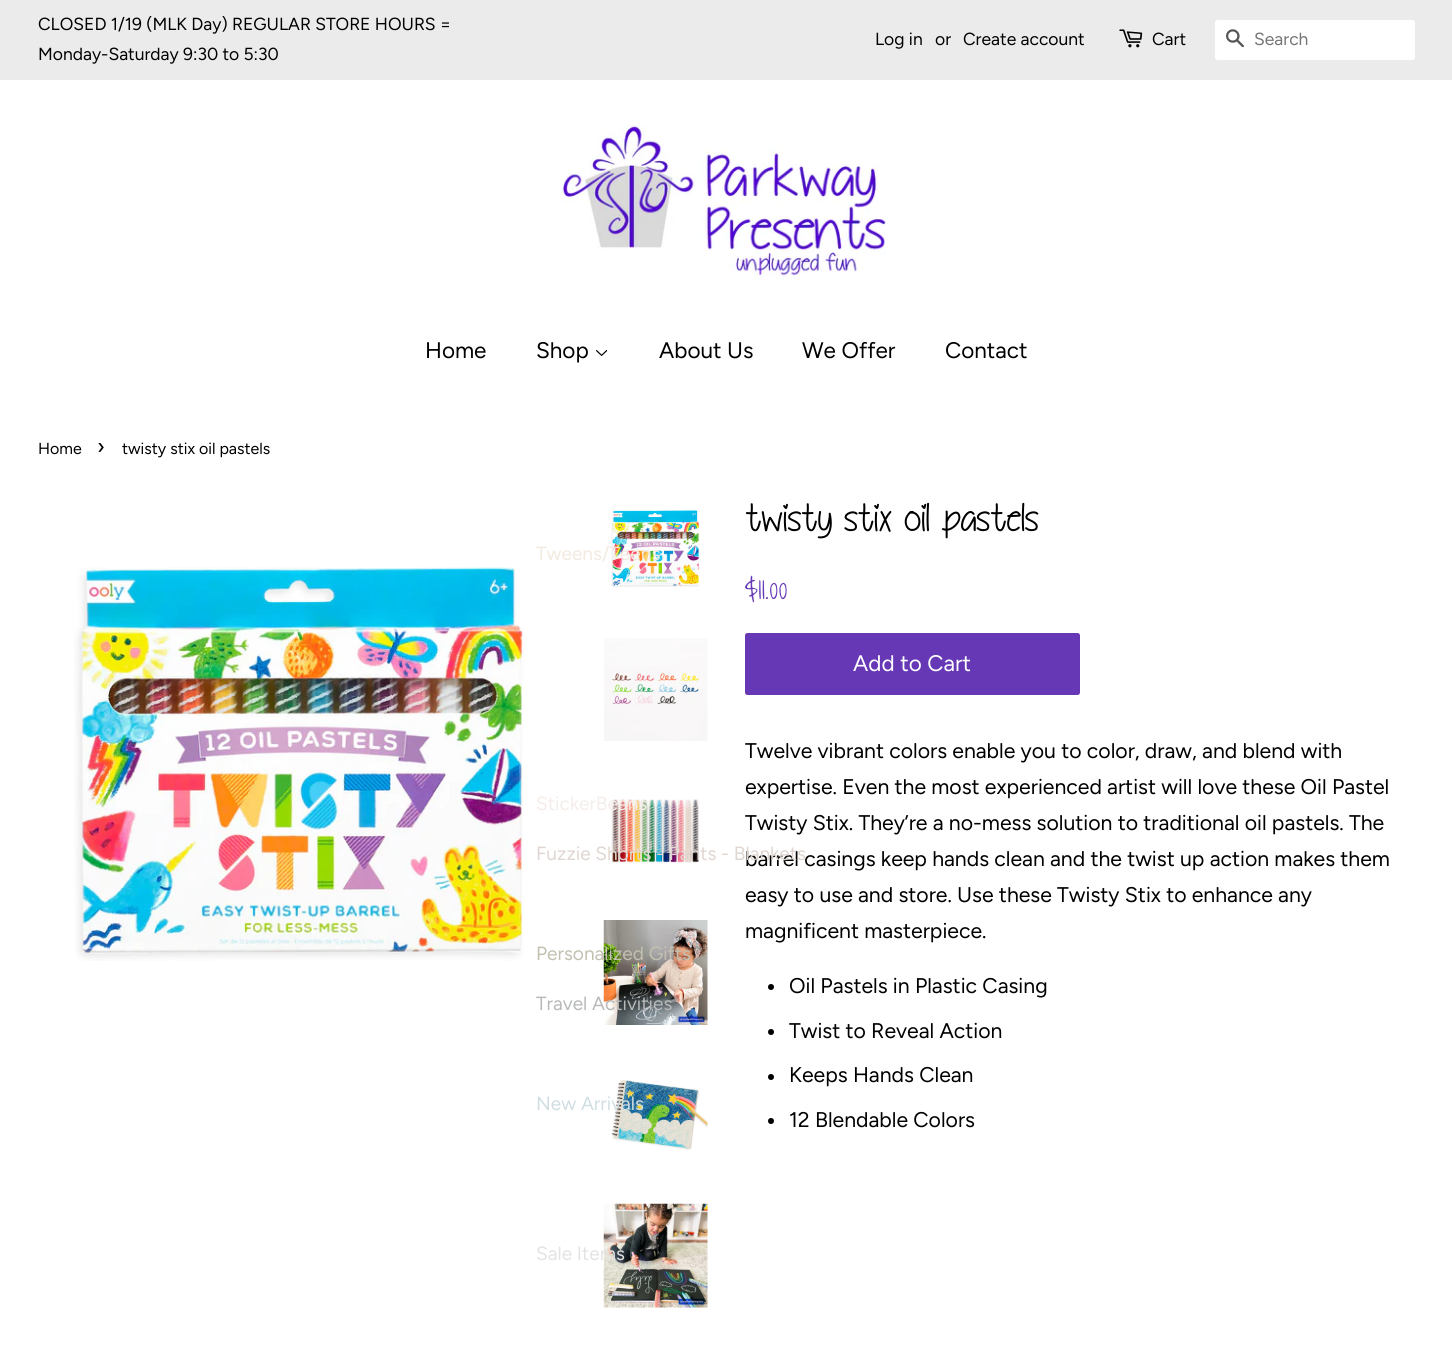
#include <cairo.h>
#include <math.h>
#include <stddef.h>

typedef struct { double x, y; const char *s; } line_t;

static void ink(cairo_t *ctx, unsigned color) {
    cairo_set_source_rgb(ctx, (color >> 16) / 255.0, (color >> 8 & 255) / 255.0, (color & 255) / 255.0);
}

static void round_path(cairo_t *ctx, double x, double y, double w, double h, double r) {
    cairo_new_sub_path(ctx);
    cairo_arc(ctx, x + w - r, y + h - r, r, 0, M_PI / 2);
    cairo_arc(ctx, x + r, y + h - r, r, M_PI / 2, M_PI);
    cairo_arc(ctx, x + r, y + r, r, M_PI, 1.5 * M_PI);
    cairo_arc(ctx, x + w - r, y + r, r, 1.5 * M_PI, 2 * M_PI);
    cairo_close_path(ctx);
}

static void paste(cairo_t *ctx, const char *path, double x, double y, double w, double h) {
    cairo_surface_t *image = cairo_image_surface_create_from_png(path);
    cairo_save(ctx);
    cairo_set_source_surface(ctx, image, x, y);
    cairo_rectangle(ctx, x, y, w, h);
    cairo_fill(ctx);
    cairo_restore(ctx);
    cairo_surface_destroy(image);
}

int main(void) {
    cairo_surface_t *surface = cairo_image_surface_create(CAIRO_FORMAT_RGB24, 1452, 1366);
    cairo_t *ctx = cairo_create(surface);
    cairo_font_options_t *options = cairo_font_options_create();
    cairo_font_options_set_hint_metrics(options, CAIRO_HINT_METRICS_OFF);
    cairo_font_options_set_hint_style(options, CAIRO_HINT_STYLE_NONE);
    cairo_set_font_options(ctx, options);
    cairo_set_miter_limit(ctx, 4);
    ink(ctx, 0xFFFFFF);
    cairo_paint(ctx);
    ink(ctx, 0xEBEBEB);
    cairo_rectangle(ctx, 0, 0, 1452, 80);
    cairo_fill(ctx);
    cairo_select_font_face(ctx, "Figtree", CAIRO_FONT_SLANT_NORMAL, CAIRO_FONT_WEIGHT_NORMAL);
    cairo_set_font_size(ctx, 17.5);
    ink(ctx, 0x000000);
    {
        static const line_t items[] = {
            {38, 30, "CLOSED 1/19 (MLK Day) REGULAR STORE HOURS ="},
            {38, 60, "Monday-Saturday 9:30 to 5:30"},
            {875, 45, "Log in"},
            {935, 45, "or"},
            {963, 45, "Create account"},
        };
        for (size_t i = 0; i < sizeof items / sizeof *items; i++) {
            cairo_move_to(ctx, items[i].x, items[i].y);
            cairo_show_text(ctx, items[i].s);
        }
    }
    paste(ctx, "media/1.png", 1119, 29, 24, 19);
    cairo_move_to(ctx, 1152, 45);
    cairo_show_text(ctx, "Cart");
    ink(ctx, 0xFFFFFF);
    round_path(ctx, 1215, 20, 200, 40, 2.5);
    cairo_fill(ctx);
    paste(ctx, "media/2.png", 1226, 29, 18, 19);
    ink(ctx, 0x757575);
    cairo_move_to(ctx, 1254, 45);
    cairo_show_text(ctx, "Search");
    paste(ctx, "media/3.png", 559, 125, 327, 155);
    cairo_set_font_size(ctx, 22.5);
    ink(ctx, 0x000000);
    cairo_move_to(ctx, 425, 358);
    cairo_show_text(ctx, "Home");
    cairo_move_to(ctx, 536, 358);
    cairo_show_text(ctx, "Shop");
    paste(ctx, "media/4.png", 596, 350, 12, 7);
    paste(ctx, "media/6.png", 611, 510, 89, 78);
    cairo_set_font_size(ctx, 19.1);
    ink(ctx, 0xF2EAE0);
    cairo_move_to(ctx, 536, 560);
    cairo_show_text(ctx, "Tweens/Teens");
    paste(ctx, "media/8.png", 611, 799, 89, 64);
    ink(ctx, 0xF5EDE9);
    cairo_move_to(ctx, 536, 810);
    cairo_show_text(ctx, "StickerBeans");
    cairo_set_font_size(ctx, 21.25);
    ink(ctx, 0x000000);
    cairo_move_to(ctx, 745, 866);
    cairo_show_text(ctx, "barrel casings keep hands clean and the twist up action makes them");
    cairo_set_font_size(ctx, 19.1);
    ink(ctx, 0xE0D6D1);
    cairo_move_to(ctx, 536, 860);
    cairo_show_text(ctx, "Fuzzie Shorts - Pants - Blankets");
    paste(ctx, "media/9.png", 603, 920, 105, 105);
    ink(ctx, 0xC3C0B1);
    cairo_move_to(ctx, 536, 960);
    cairo_show_text(ctx, "Personalized Gifts");
    ink(ctx, 0xB7B9B9);
    cairo_move_to(ctx, 536, 1010);
    cairo_show_text(ctx, "Travel Activities");
    paste(ctx, "media/10.png", 611, 1079, 97, 71);
    ink(ctx, 0xD0DEE2);
    cairo_move_to(ctx, 536, 1110);
    cairo_show_text(ctx, "New Arrivals");
    paste(ctx, "media/11.png", 603, 1203, 105, 105);
    ink(ctx, 0xE2E3E3);
    cairo_move_to(ctx, 536, 1260);
    cairo_show_text(ctx, "Sale Items");
    cairo_set_font_size(ctx, 22.5);
    ink(ctx, 0x000000);
    {
        static const line_t items[] = {
            {802, 358, "We Offer"},
            {659, 358, "About Us"},
            {945, 358, "Contact"},
        };
        for (size_t i = 0; i < sizeof items / sizeof *items; i++) {
            cairo_move_to(ctx, items[i].x, items[i].y);
            cairo_show_text(ctx, items[i].s);
        }
    }
    cairo_set_font_size(ctx, 16);
    cairo_move_to(ctx, 38, 454);
    cairo_show_text(ctx, "Home");
    cairo_set_font_size(ctx, 22);
    cairo_move_to(ctx, 97, 454);
    cairo_show_text(ctx, "›");
    cairo_set_font_size(ctx, 16);
    cairo_move_to(ctx, 122, 454);
    cairo_show_text(ctx, "twisty stix oil pastels");
    paste(ctx, "media/5.png", 74, 567, 450, 394);
    paste(ctx, "media/7.png", 604, 638, 104, 103);
    cairo_select_font_face(ctx, "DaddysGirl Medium", CAIRO_FONT_SLANT_NORMAL, CAIRO_FONT_WEIGHT_NORMAL);
    cairo_set_font_size(ctx, 40);
    cairo_move_to(ctx, 745, 531);
    cairo_show_text(ctx, "twisty stix oil pastels");
    cairo_select_font_face(ctx, "Shadows Into Light", CAIRO_FONT_SLANT_NORMAL, CAIRO_FONT_WEIGHT_NORMAL);
    cairo_set_font_size(ctx, 30);
    ink(ctx, 0x6638B6);
    cairo_move_to(ctx, 745, 599);
    cairo_show_text(ctx, "$11.00");
    round_path(ctx, 745, 633, 335, 62, 2.5);
    cairo_fill(ctx);
    cairo_select_font_face(ctx, "Figtree", CAIRO_FONT_SLANT_NORMAL, CAIRO_FONT_WEIGHT_NORMAL);
    cairo_set_font_size(ctx, 22.5);
    ink(ctx, 0xFFFFFF);
    cairo_move_to(ctx, 853, 671);
    cairo_show_text(ctx, "Add to Cart");
    cairo_set_font_size(ctx, 21.25);
    ink(ctx, 0x000000);
    {
        static const line_t items[] = {
            {745, 758, "Twelve vibrant colors enable you to color, draw, and blend with"},
            {745, 794, "expertise. Even the most experienced artist will love these Oil Pastel"},
            {745, 830, "Twisty Stix. They’re a no-mess solution to traditional oil pastels. The"},
            {745, 902, "easy to use and store. Use these Twisty Stix to enhance any"},
            {745, 938, "magnificent masterpiece."},
        };
        for (size_t i = 0; i < sizeof items / sizeof *items; i++) {
            cairo_move_to(ctx, items[i].x, items[i].y);
            cairo_show_text(ctx, items[i].s);
        }
    }
    cairo_new_path(ctx);
    cairo_arc(ctx, 771, 987, 3, 0, 2 * M_PI);
    cairo_fill(ctx);
    cairo_move_to(ctx, 789, 993);
    cairo_show_text(ctx, "Oil Pastels in Plastic Casing");
    cairo_new_path(ctx);
    cairo_arc(ctx, 771, 1032, 3, 0, 2 * M_PI);
    cairo_fill(ctx);
    cairo_move_to(ctx, 789, 1038);
    cairo_show_text(ctx, "Twist to Reveal Action");
    cairo_new_path(ctx);
    cairo_arc(ctx, 771, 1077, 3, 0, 2 * M_PI);
    cairo_fill(ctx);
    cairo_move_to(ctx, 789, 1082);
    cairo_show_text(ctx, "Keeps Hands Clean");
    cairo_new_path(ctx);
    cairo_arc(ctx, 771, 1121, 3, 0, 2 * M_PI);
    cairo_fill(ctx);
    cairo_move_to(ctx, 789, 1127);
    cairo_show_text(ctx, "12 Blendable Colors");
    cairo_surface_write_to_png(surface, "image.png");
    cairo_font_options_destroy(options);
    cairo_destroy(ctx);
    cairo_surface_destroy(surface);
    return 0;
}
